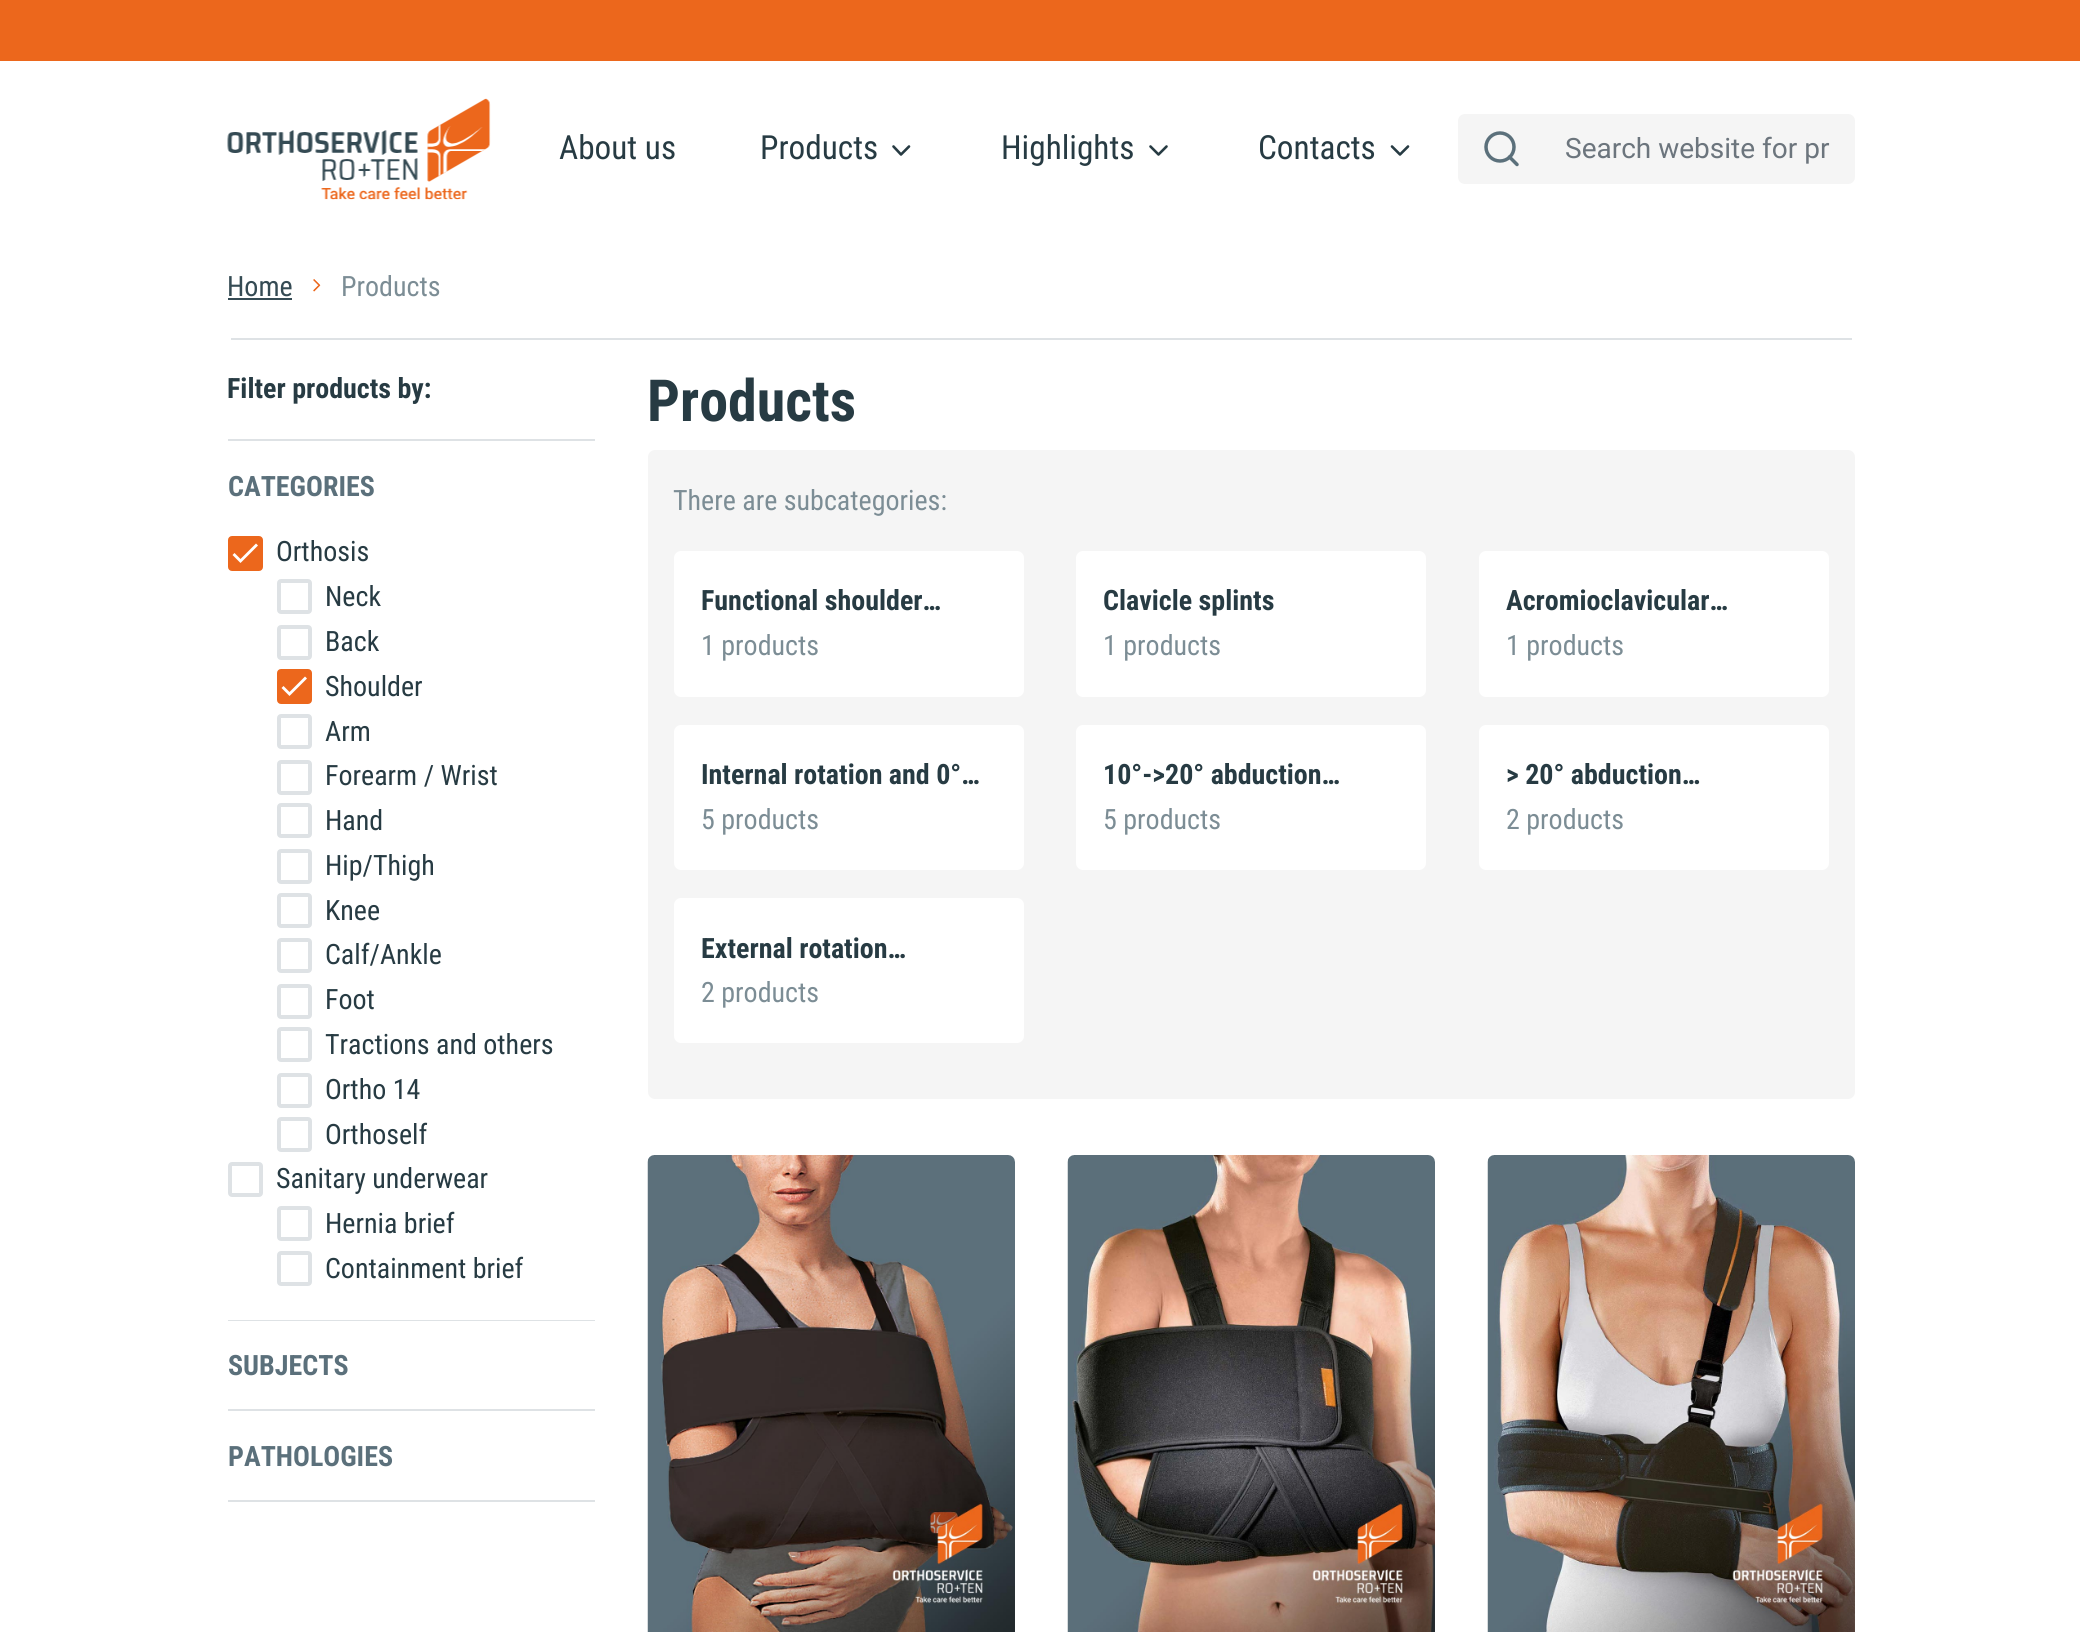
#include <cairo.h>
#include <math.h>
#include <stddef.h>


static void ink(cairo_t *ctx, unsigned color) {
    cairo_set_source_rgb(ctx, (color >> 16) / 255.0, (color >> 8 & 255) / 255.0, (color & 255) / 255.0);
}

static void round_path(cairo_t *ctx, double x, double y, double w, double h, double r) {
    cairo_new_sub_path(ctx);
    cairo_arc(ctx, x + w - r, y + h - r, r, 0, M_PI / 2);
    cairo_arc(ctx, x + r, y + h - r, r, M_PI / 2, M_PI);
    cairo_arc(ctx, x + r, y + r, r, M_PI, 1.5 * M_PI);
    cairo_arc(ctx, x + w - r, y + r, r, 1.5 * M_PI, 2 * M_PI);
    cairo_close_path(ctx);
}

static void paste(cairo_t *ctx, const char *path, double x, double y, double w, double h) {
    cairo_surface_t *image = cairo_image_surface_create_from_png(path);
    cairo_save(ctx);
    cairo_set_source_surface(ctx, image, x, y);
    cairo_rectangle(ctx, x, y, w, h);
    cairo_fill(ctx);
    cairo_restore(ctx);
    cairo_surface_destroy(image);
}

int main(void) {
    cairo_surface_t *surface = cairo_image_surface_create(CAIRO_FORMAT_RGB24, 2080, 1632);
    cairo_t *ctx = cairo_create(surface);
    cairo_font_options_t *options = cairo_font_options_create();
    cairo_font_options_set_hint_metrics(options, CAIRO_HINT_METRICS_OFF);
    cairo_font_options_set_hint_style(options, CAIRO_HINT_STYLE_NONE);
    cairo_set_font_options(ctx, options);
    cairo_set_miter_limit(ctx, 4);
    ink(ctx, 0xFFFFFF);
    cairo_paint(ctx);
    ink(ctx, 0xEC671C);
    cairo_rectangle(ctx, 0, 0, 2080, 61);
    cairo_fill(ctx);
    paste(ctx, "media/1.png", 227, 98, 264, 102);
    cairo_select_font_face(ctx, "Roboto Condensed", CAIRO_FONT_SLANT_NORMAL, CAIRO_FONT_WEIGHT_NORMAL);
    cairo_set_font_size(ctx, 33.25);
    ink(ctx, 0x273B43);
    cairo_move_to(ctx, 559, 159);
    cairo_show_text(ctx, "About us");
    cairo_move_to(ctx, 760, 159);
    cairo_show_text(ctx, "Products");
    cairo_new_path(ctx);
    cairo_move_to(ctx, 893.5, 146.5);
    cairo_line_to(ctx, 901, 154.5);
    cairo_line_to(ctx, 909, 146.5);
    cairo_set_line_width(ctx, 2.6);
    cairo_set_line_cap(ctx, CAIRO_LINE_CAP_ROUND);
    cairo_set_line_join(ctx, CAIRO_LINE_JOIN_ROUND);
    cairo_stroke(ctx);
    cairo_move_to(ctx, 1001, 159);
    cairo_show_text(ctx, "Highlights");
    cairo_new_path(ctx);
    cairo_move_to(ctx, 1150.5, 146.5);
    cairo_line_to(ctx, 1158.5, 154.5);
    cairo_line_to(ctx, 1166.5, 146.5);
    cairo_stroke(ctx);
    cairo_move_to(ctx, 1258, 159);
    cairo_show_text(ctx, "Contacts");
    cairo_new_path(ctx);
    cairo_move_to(ctx, 1392, 146.5);
    cairo_line_to(ctx, 1400, 154.5);
    cairo_line_to(ctx, 1408, 146.5);
    cairo_stroke(ctx);
    ink(ctx, 0xF5F5F5);
    cairo_new_path(ctx);
    cairo_move_to(ctx, 1465, 114);
    cairo_line_to(ctx, 1545, 114);
    cairo_line_to(ctx, 1545, 184);
    cairo_line_to(ctx, 1465, 184);
    cairo_curve_to(ctx, 1461, 184, 1458, 181, 1458, 177);
    cairo_line_to(ctx, 1458, 121);
    cairo_curve_to(ctx, 1458, 117, 1461, 114, 1465, 114);
    cairo_close_path(ctx);
    cairo_fill(ctx);
    cairo_arc(ctx, 1500, 147, 14, 0, 2 * M_PI);
    ink(ctx, 0x5B707B);
    cairo_set_line_width(ctx, 3.5);
    cairo_set_line_cap(ctx, CAIRO_LINE_CAP_BUTT);
    cairo_set_line_join(ctx, CAIRO_LINE_JOIN_MITER);
    cairo_stroke(ctx);
    cairo_new_path(ctx);
    cairo_move_to(ctx, 1517, 164.5);
    cairo_line_to(ctx, 1509.5, 157);
    cairo_set_line_cap(ctx, CAIRO_LINE_CAP_ROUND);
    cairo_set_line_join(ctx, CAIRO_LINE_JOIN_ROUND);
    cairo_stroke(ctx);
    ink(ctx, 0xF5F5F5);
    cairo_new_path(ctx);
    cairo_move_to(ctx, 1545, 115);
    cairo_line_to(ctx, 1848, 115);
    cairo_curve_to(ctx, 1851.5, 115, 1854, 117.5, 1854, 121);
    cairo_line_to(ctx, 1854, 177);
    cairo_curve_to(ctx, 1854, 180.5, 1851.5, 183, 1848, 183);
    cairo_line_to(ctx, 1545, 183);
    cairo_close_path(ctx);
    cairo_fill_preserve(ctx);
    cairo_set_line_width(ctx, 2);
    cairo_set_line_cap(ctx, CAIRO_LINE_CAP_BUTT);
    cairo_set_line_join(ctx, CAIRO_LINE_JOIN_MITER);
    cairo_stroke(ctx);
    cairo_select_font_face(ctx, "Roboto", CAIRO_FONT_SLANT_NORMAL, CAIRO_FONT_WEIGHT_NORMAL);
    cairo_set_font_size(ctx, 28);
    ink(ctx, 0x6C757D);
    cairo_move_to(ctx, 1565, 158);
    cairo_show_text(ctx, "Search website for pr");
    ink(ctx, 0xDEE2E5);
    cairo_rectangle(ctx, 231, 338, 1621, 2);
    cairo_fill(ctx);
    cairo_select_font_face(ctx, "Roboto Condensed", CAIRO_FONT_SLANT_NORMAL, CAIRO_FONT_WEIGHT_NORMAL);
    ink(ctx, 0x354B54);
    cairo_move_to(ctx, 227, 296);
    cairo_show_text(ctx, "Home");
    cairo_rectangle(ctx, 228, 298, 64, 2);
    cairo_fill(ctx);
    paste(ctx, "media/2.png", 313, 279, 8, 13);
    ink(ctx, 0x7C8D95);
    cairo_move_to(ctx, 341, 296);
    cairo_show_text(ctx, "Products");
    cairo_select_font_face(ctx, "Roboto Condensed", CAIRO_FONT_SLANT_NORMAL, CAIRO_FONT_WEIGHT_BOLD);
    ink(ctx, 0x273B43);
    cairo_move_to(ctx, 227, 398);
    cairo_show_text(ctx, "Filter products by:");
    ink(ctx, 0xDEE2E5);
    cairo_rectangle(ctx, 228, 439, 367, 2);
    cairo_fill(ctx);
    ink(ctx, 0x5B707B);
    cairo_move_to(ctx, 228, 496);
    cairo_show_text(ctx, "CATEGORIES");
    ink(ctx, 0xEC671C);
    round_path(ctx, 230, 538, 31, 31, 2);
    cairo_fill_preserve(ctx);
    cairo_set_line_width(ctx, 4);
    cairo_stroke(ctx);
    cairo_select_font_face(ctx, "Roboto Condensed", CAIRO_FONT_SLANT_NORMAL, CAIRO_FONT_WEIGHT_NORMAL);
    ink(ctx, 0x273B43);
    cairo_move_to(ctx, 276, 561);
    cairo_show_text(ctx, "Orthosis");
    ink(ctx, 0xFFFFFF);
    cairo_new_path(ctx);
    cairo_move_to(ctx, 258, 545.5);
    cairo_line_to(ctx, 240.5, 563);
    cairo_line_to(ctx, 232.5, 555);
    cairo_line_to(ctx, 234.5, 553);
    cairo_line_to(ctx, 240.5, 559);
    cairo_line_to(ctx, 256, 543.5);
    cairo_close_path(ctx);
    cairo_fill(ctx);
    round_path(ctx, 279, 581, 31, 31, 2);
    ink(ctx, 0xDEE2E5);
    cairo_stroke(ctx);
    ink(ctx, 0x273B43);
    cairo_move_to(ctx, 325, 606);
    cairo_show_text(ctx, "Neck");
    round_path(ctx, 279, 627, 31, 31, 2);
    ink(ctx, 0xDEE2E5);
    cairo_stroke(ctx);
    ink(ctx, 0x273B43);
    cairo_move_to(ctx, 325, 651);
    cairo_show_text(ctx, "Back");
    ink(ctx, 0xEC671C);
    round_path(ctx, 279, 671, 31, 31, 2);
    cairo_fill_preserve(ctx);
    cairo_stroke(ctx);
    ink(ctx, 0x273B43);
    cairo_move_to(ctx, 325, 696);
    cairo_show_text(ctx, "Shoulder");
    ink(ctx, 0xFFFFFF);
    cairo_new_path(ctx);
    cairo_move_to(ctx, 307, 678.5);
    cairo_line_to(ctx, 289.5, 696);
    cairo_line_to(ctx, 281.5, 688);
    cairo_line_to(ctx, 283.5, 686);
    cairo_line_to(ctx, 289.5, 692);
    cairo_line_to(ctx, 305, 676.5);
    cairo_close_path(ctx);
    cairo_fill(ctx);
    round_path(ctx, 279, 716, 31, 31, 2);
    ink(ctx, 0xDEE2E5);
    cairo_stroke(ctx);
    ink(ctx, 0x273B43);
    cairo_move_to(ctx, 325, 741);
    cairo_show_text(ctx, "Arm");
    round_path(ctx, 279, 762, 31, 31, 2);
    ink(ctx, 0xDEE2E5);
    cairo_stroke(ctx);
    ink(ctx, 0x273B43);
    cairo_move_to(ctx, 325, 785);
    cairo_show_text(ctx, "Forearm / Wrist");
    round_path(ctx, 279, 805, 31, 31, 2);
    ink(ctx, 0xDEE2E5);
    cairo_stroke(ctx);
    ink(ctx, 0x273B43);
    cairo_move_to(ctx, 325, 830);
    cairo_show_text(ctx, "Hand");
    round_path(ctx, 279, 851, 31, 31, 2);
    ink(ctx, 0xDEE2E5);
    cairo_stroke(ctx);
    ink(ctx, 0x273B43);
    cairo_move_to(ctx, 325, 875);
    cairo_show_text(ctx, "Hip/Thigh");
    round_path(ctx, 279, 895, 31, 31, 2);
    ink(ctx, 0xDEE2E5);
    cairo_stroke(ctx);
    ink(ctx, 0x273B43);
    cairo_move_to(ctx, 325, 920);
    cairo_show_text(ctx, "Knee");
    round_path(ctx, 279, 940, 31, 31, 2);
    ink(ctx, 0xDEE2E5);
    cairo_stroke(ctx);
    ink(ctx, 0x273B43);
    cairo_move_to(ctx, 325, 964);
    cairo_show_text(ctx, "Calf/Ankle");
    round_path(ctx, 279, 986, 31, 31, 2);
    ink(ctx, 0xDEE2E5);
    cairo_stroke(ctx);
    ink(ctx, 0x273B43);
    cairo_move_to(ctx, 325, 1009);
    cairo_show_text(ctx, "Foot");
    round_path(ctx, 279, 1029, 31, 31, 2);
    ink(ctx, 0xDEE2E5);
    cairo_stroke(ctx);
    ink(ctx, 0x273B43);
    cairo_move_to(ctx, 325, 1054);
    cairo_show_text(ctx, "Tractions and others");
    round_path(ctx, 279, 1075, 31, 31, 2);
    ink(ctx, 0xDEE2E5);
    cairo_stroke(ctx);
    ink(ctx, 0x273B43);
    cairo_move_to(ctx, 325, 1099);
    cairo_show_text(ctx, "Ortho 14");
    round_path(ctx, 279, 1119, 31, 31, 2);
    ink(ctx, 0xDEE2E5);
    cairo_stroke(ctx);
    ink(ctx, 0x273B43);
    cairo_move_to(ctx, 325, 1144);
    cairo_show_text(ctx, "Orthoself");
    round_path(ctx, 230, 1164, 31, 31, 2);
    ink(ctx, 0xDEE2E5);
    cairo_stroke(ctx);
    ink(ctx, 0x273B43);
    cairo_move_to(ctx, 276, 1188);
    cairo_show_text(ctx, "Sanitary underwear");
    round_path(ctx, 279, 1208, 31, 31, 2);
    ink(ctx, 0xDEE2E5);
    cairo_stroke(ctx);
    ink(ctx, 0x273B43);
    cairo_move_to(ctx, 325, 1233);
    cairo_show_text(ctx, "Hernia brief");
    round_path(ctx, 279, 1253, 31, 31, 2);
    ink(ctx, 0xDEE2E5);
    cairo_stroke(ctx);
    ink(ctx, 0x273B43);
    cairo_move_to(ctx, 325, 1278);
    cairo_show_text(ctx, "Containment brief");
    ink(ctx, 0xDEE2E5);
    cairo_rectangle(ctx, 228, 1320, 367, 1);
    cairo_fill(ctx);
    cairo_select_font_face(ctx, "Roboto Condensed", CAIRO_FONT_SLANT_NORMAL, CAIRO_FONT_WEIGHT_BOLD);
    ink(ctx, 0x5B707B);
    cairo_move_to(ctx, 228, 1375);
    cairo_show_text(ctx, "SUBJECTS");
    ink(ctx, 0xDEE2E5);
    cairo_rectangle(ctx, 228, 1409, 367, 2);
    cairo_fill(ctx);
    cairo_rectangle(ctx, 228, 1500, 367, 2);
    cairo_fill(ctx);
    ink(ctx, 0x5B707B);
    cairo_move_to(ctx, 228, 1466);
    cairo_show_text(ctx, "PATHOLOGIES");
    cairo_set_font_size(ctx, 58);
    ink(ctx, 0x273B43);
    cairo_move_to(ctx, 647, 421);
    cairo_show_text(ctx, "Products");
    ink(ctx, 0xF5F5F5);
    round_path(ctx, 648, 450, 1207, 649, 7);
    cairo_fill(ctx);
    cairo_select_font_face(ctx, "Roboto Condensed", CAIRO_FONT_SLANT_NORMAL, CAIRO_FONT_WEIGHT_NORMAL);
    cairo_set_font_size(ctx, 28);
    ink(ctx, 0x7C8D95);
    cairo_move_to(ctx, 673, 510);
    cairo_show_text(ctx, "There are subcategories:");
    ink(ctx, 0xFFFFFF);
    round_path(ctx, 674, 551, 350, 146, 7);
    cairo_fill(ctx);
    cairo_select_font_face(ctx, "Roboto Condensed", CAIRO_FONT_SLANT_NORMAL, CAIRO_FONT_WEIGHT_BOLD);
    ink(ctx, 0x273B43);
    cairo_move_to(ctx, 701, 610);
    cairo_show_text(ctx, "Functional shoulder…");
    cairo_select_font_face(ctx, "Roboto Condensed", CAIRO_FONT_SLANT_NORMAL, CAIRO_FONT_WEIGHT_NORMAL);
    ink(ctx, 0x7C8D95);
    cairo_move_to(ctx, 701, 655);
    cairo_show_text(ctx, "1 products");
    ink(ctx, 0xFFFFFF);
    round_path(ctx, 1076, 551, 350, 146, 7);
    cairo_fill(ctx);
    cairo_select_font_face(ctx, "Roboto Condensed", CAIRO_FONT_SLANT_NORMAL, CAIRO_FONT_WEIGHT_BOLD);
    ink(ctx, 0x273B43);
    cairo_move_to(ctx, 1103, 610);
    cairo_show_text(ctx, "Clavicle splints");
    cairo_select_font_face(ctx, "Roboto Condensed", CAIRO_FONT_SLANT_NORMAL, CAIRO_FONT_WEIGHT_NORMAL);
    ink(ctx, 0x7C8D95);
    cairo_move_to(ctx, 1103, 655);
    cairo_show_text(ctx, "1 products");
    ink(ctx, 0xFFFFFF);
    round_path(ctx, 1479, 551, 350, 146, 7);
    cairo_fill(ctx);
    cairo_select_font_face(ctx, "Roboto Condensed", CAIRO_FONT_SLANT_NORMAL, CAIRO_FONT_WEIGHT_BOLD);
    ink(ctx, 0x273B43);
    cairo_move_to(ctx, 1506, 610);
    cairo_show_text(ctx, "Acromioclavicular…");
    cairo_select_font_face(ctx, "Roboto Condensed", CAIRO_FONT_SLANT_NORMAL, CAIRO_FONT_WEIGHT_NORMAL);
    ink(ctx, 0x7C8D95);
    cairo_move_to(ctx, 1506, 655);
    cairo_show_text(ctx, "1 products");
    ink(ctx, 0xFFFFFF);
    round_path(ctx, 674, 725, 350, 145, 7);
    cairo_fill(ctx);
    cairo_select_font_face(ctx, "Roboto Condensed", CAIRO_FONT_SLANT_NORMAL, CAIRO_FONT_WEIGHT_BOLD);
    ink(ctx, 0x273B43);
    cairo_move_to(ctx, 701, 784);
    cairo_show_text(ctx, "Internal rotation and 0°…");
    cairo_select_font_face(ctx, "Roboto Condensed", CAIRO_FONT_SLANT_NORMAL, CAIRO_FONT_WEIGHT_NORMAL);
    ink(ctx, 0x7C8D95);
    cairo_move_to(ctx, 701, 829);
    cairo_show_text(ctx, "5 products");
    ink(ctx, 0xFFFFFF);
    round_path(ctx, 1076, 725, 350, 145, 7);
    cairo_fill(ctx);
    cairo_select_font_face(ctx, "Roboto Condensed", CAIRO_FONT_SLANT_NORMAL, CAIRO_FONT_WEIGHT_BOLD);
    ink(ctx, 0x273B43);
    cairo_move_to(ctx, 1103, 784);
    cairo_show_text(ctx, "10°->20° abduction…");
    cairo_select_font_face(ctx, "Roboto Condensed", CAIRO_FONT_SLANT_NORMAL, CAIRO_FONT_WEIGHT_NORMAL);
    ink(ctx, 0x7C8D95);
    cairo_move_to(ctx, 1103, 829);
    cairo_show_text(ctx, "5 products");
    ink(ctx, 0xFFFFFF);
    round_path(ctx, 1479, 725, 350, 145, 7);
    cairo_fill(ctx);
    cairo_select_font_face(ctx, "Roboto Condensed", CAIRO_FONT_SLANT_NORMAL, CAIRO_FONT_WEIGHT_BOLD);
    ink(ctx, 0x273B43);
    cairo_move_to(ctx, 1506, 784);
    cairo_show_text(ctx, "> 20° abduction…");
    cairo_select_font_face(ctx, "Roboto Condensed", CAIRO_FONT_SLANT_NORMAL, CAIRO_FONT_WEIGHT_NORMAL);
    ink(ctx, 0x7C8D95);
    cairo_move_to(ctx, 1506, 829);
    cairo_show_text(ctx, "2 products");
    ink(ctx, 0xFFFFFF);
    round_path(ctx, 674, 898, 350, 145, 7);
    cairo_fill(ctx);
    cairo_select_font_face(ctx, "Roboto Condensed", CAIRO_FONT_SLANT_NORMAL, CAIRO_FONT_WEIGHT_BOLD);
    ink(ctx, 0x273B43);
    cairo_move_to(ctx, 701, 958);
    cairo_show_text(ctx, "External rotation…");
    cairo_select_font_face(ctx, "Roboto Condensed", CAIRO_FONT_SLANT_NORMAL, CAIRO_FONT_WEIGHT_NORMAL);
    ink(ctx, 0x7C8D95);
    cairo_move_to(ctx, 701, 1002);
    cairo_show_text(ctx, "2 products");
    paste(ctx, "media/3.png", 647, 1155, 368, 477);
    paste(ctx, "media/4.png", 1067, 1155, 368, 477);
    paste(ctx, "media/5.png", 1487, 1155, 368, 477);
    cairo_surface_write_to_png(surface, "image.png");
    cairo_font_options_destroy(options);
    cairo_destroy(ctx);
    cairo_surface_destroy(surface);
    return 0;
}
